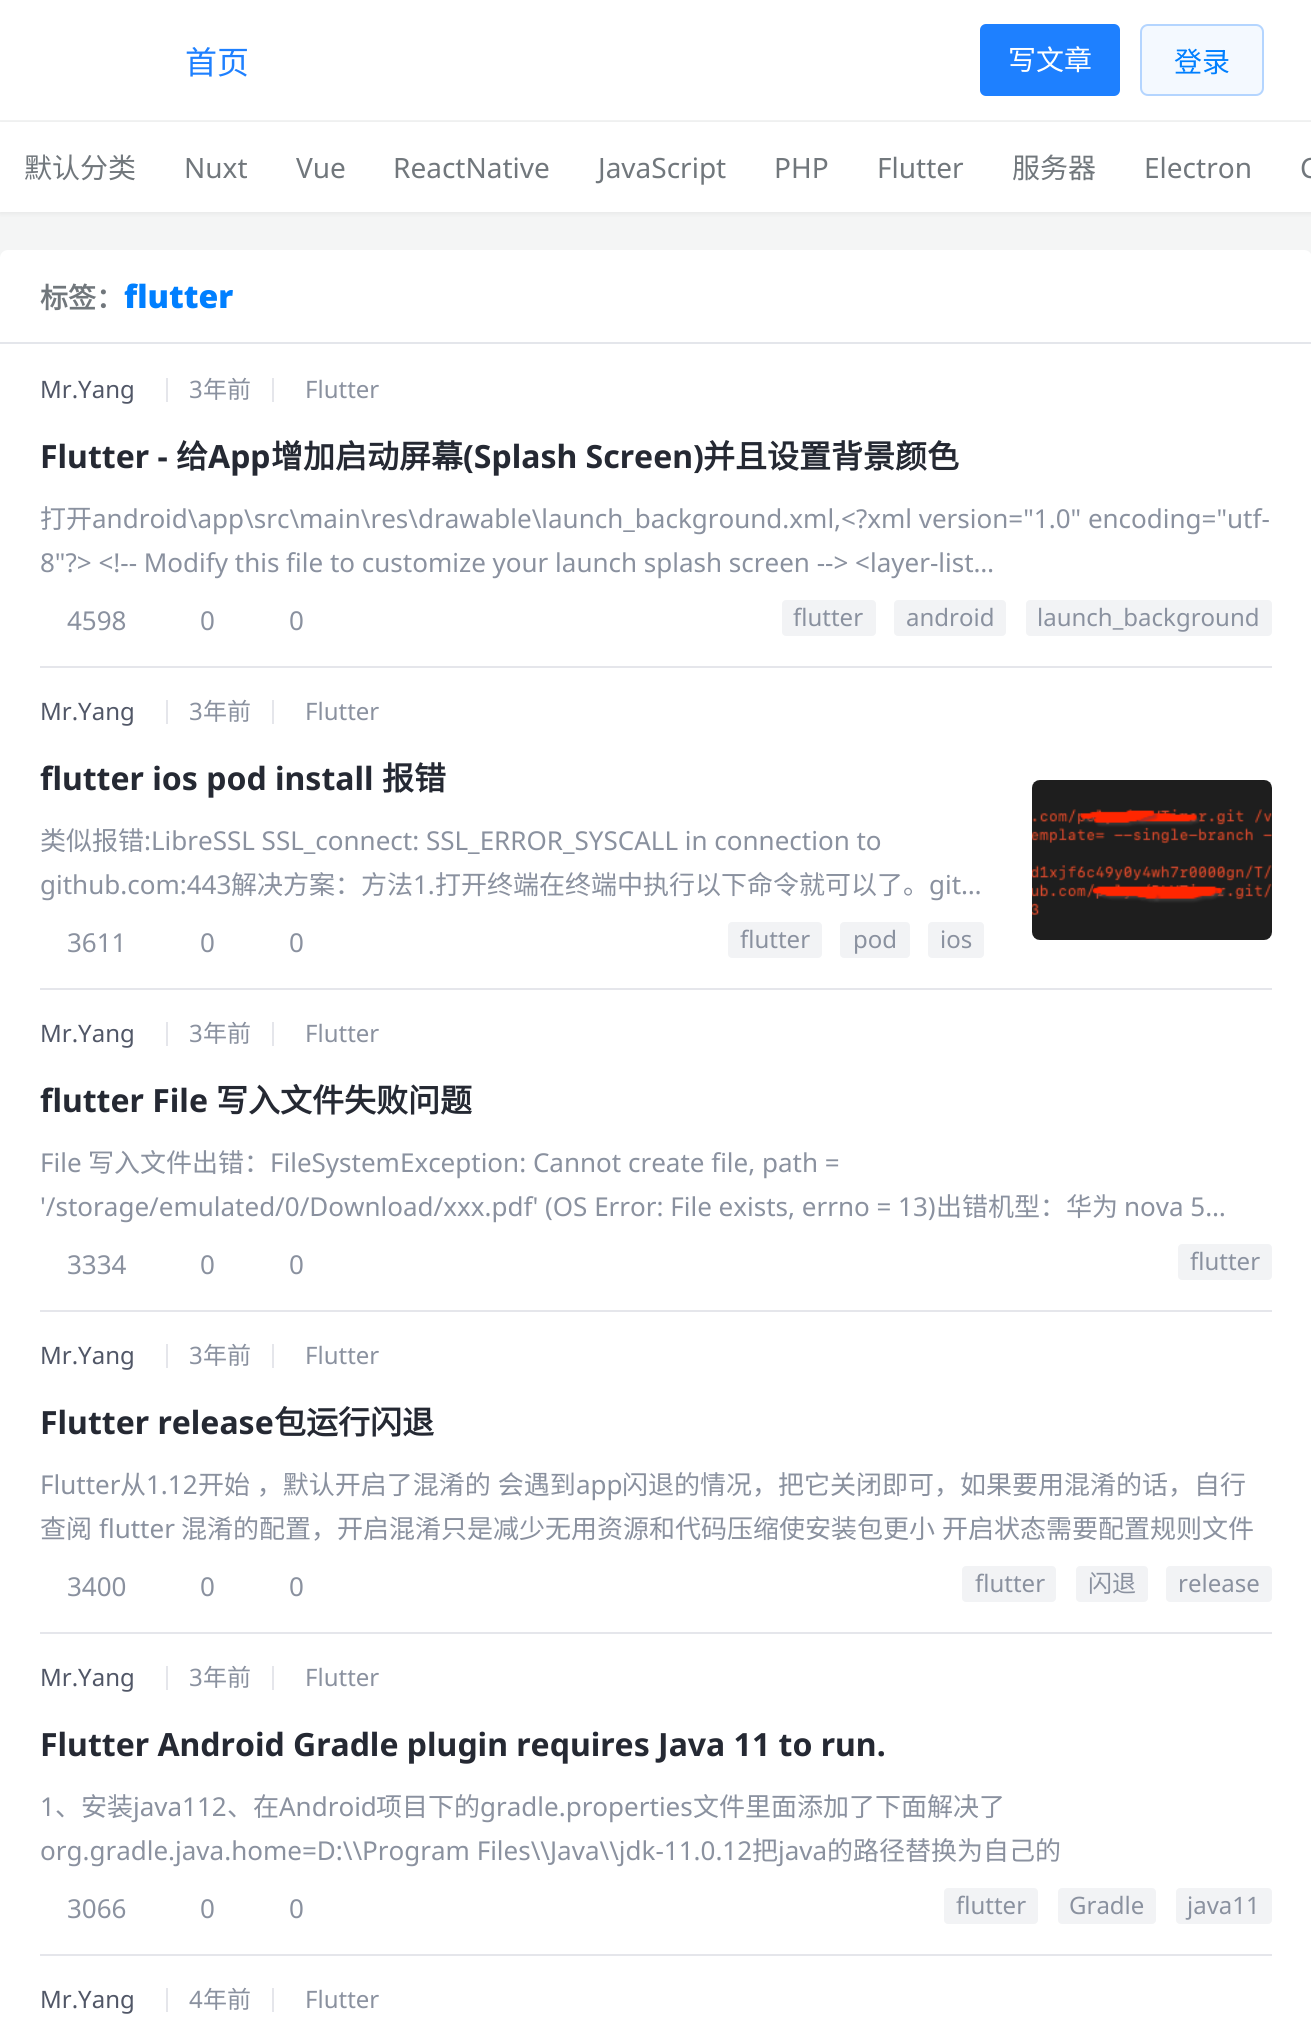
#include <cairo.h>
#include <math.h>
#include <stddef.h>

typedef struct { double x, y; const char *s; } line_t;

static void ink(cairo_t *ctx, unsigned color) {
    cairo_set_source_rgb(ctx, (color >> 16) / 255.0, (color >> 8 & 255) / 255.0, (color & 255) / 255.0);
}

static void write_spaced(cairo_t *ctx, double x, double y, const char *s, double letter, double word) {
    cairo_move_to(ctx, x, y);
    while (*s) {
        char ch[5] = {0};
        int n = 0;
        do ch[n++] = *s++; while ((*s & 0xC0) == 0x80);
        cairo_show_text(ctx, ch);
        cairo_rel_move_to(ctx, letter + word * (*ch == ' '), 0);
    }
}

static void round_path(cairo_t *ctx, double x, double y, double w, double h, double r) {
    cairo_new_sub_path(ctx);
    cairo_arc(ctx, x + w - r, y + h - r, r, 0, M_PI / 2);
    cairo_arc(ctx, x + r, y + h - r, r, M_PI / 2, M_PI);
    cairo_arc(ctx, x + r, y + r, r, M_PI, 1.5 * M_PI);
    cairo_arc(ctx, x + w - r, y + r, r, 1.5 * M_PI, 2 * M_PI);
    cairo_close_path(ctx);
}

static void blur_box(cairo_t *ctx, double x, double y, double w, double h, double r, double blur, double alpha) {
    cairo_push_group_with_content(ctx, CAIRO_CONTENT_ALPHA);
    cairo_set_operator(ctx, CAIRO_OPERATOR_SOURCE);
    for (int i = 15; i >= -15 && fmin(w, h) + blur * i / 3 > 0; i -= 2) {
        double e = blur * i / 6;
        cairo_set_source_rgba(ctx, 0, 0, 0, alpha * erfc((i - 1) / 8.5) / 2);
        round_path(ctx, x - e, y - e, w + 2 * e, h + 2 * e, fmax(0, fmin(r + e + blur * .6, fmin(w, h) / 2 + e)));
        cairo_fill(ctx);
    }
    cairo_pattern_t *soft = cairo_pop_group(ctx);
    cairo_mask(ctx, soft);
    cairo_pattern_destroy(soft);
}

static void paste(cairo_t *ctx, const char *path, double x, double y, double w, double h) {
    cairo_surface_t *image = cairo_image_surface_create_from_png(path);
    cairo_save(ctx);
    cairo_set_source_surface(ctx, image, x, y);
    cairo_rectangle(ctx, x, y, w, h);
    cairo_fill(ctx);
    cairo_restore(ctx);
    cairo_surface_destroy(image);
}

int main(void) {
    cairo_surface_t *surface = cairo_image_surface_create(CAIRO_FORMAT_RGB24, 1311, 2030);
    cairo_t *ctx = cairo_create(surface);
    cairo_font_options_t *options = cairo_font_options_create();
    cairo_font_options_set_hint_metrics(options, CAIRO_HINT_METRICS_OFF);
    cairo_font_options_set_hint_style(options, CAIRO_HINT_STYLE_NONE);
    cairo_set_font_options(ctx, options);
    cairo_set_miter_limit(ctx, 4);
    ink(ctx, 0xF4F5F5);
    cairo_paint(ctx);
    ink(ctx, 0x000000);
    blur_box(ctx, 0, 122, 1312, 92, 0, 2, 0.05);
    ink(ctx, 0xFFFFFF);
    cairo_rectangle(ctx, 0, 0, 1311, 120);
    cairo_fill(ctx);
    cairo_select_font_face(ctx, "Noto Sans CJK SC", CAIRO_FONT_SLANT_NORMAL, CAIRO_FONT_WEIGHT_NORMAL);
    cairo_set_font_size(ctx, 32);
    ink(ctx, 0x1E80FF);
    cairo_move_to(ctx, 185, 74);
    cairo_show_text(ctx, "首页");
    round_path(ctx, 980, 24, 140, 72, 6);
    cairo_fill(ctx);
    cairo_set_font_size(ctx, 28);
    ink(ctx, 0xFFFFFF);
    cairo_move_to(ctx, 1008, 70);
    cairo_show_text(ctx, "写文章");
    ink(ctx, 0xF4F9FF);
    round_path(ctx, 1140, 24, 124, 72, 8);
    cairo_fill(ctx);
    round_path(ctx, 1141, 25, 122, 70, 7);
    cairo_set_source_rgba(ctx, 0.118, 0.502, 1, 0.3);
    cairo_stroke(ctx);
    ink(ctx, 0x007FFF);
    cairo_move_to(ctx, 1174, 72);
    cairo_show_text(ctx, "登录");
    ink(ctx, 0xFFFFFF);
    cairo_rectangle(ctx, 0, 122, 1311, 90);
    cairo_fill(ctx);
    ink(ctx, 0x71777C);
    cairo_move_to(ctx, 24, 178);
    cairo_show_text(ctx, "默认分类");
    cairo_select_font_face(ctx, "Noto Sans", CAIRO_FONT_SLANT_NORMAL, CAIRO_FONT_WEIGHT_NORMAL);
    {
        static const line_t items[] = {
            {184, 178, "Nuxt"},
            {296, 178, "Vue"},
            {393, 178, "ReactNative"},
            {598, 178, "JavaScript"},
            {774, 178, "PHP"},
            {877, 178, "Flutter"},
        };
        for (size_t i = 0; i < sizeof items / sizeof *items; i++) {
            cairo_move_to(ctx, items[i].x, items[i].y);
            cairo_show_text(ctx, items[i].s);
        }
    }
    cairo_select_font_face(ctx, "Noto Sans CJK SC", CAIRO_FONT_SLANT_NORMAL, CAIRO_FONT_WEIGHT_NORMAL);
    cairo_move_to(ctx, 1012, 178);
    cairo_show_text(ctx, "服务器");
    cairo_select_font_face(ctx, "Noto Sans", CAIRO_FONT_SLANT_NORMAL, CAIRO_FONT_WEIGHT_NORMAL);
    cairo_move_to(ctx, 1144, 178);
    cairo_show_text(ctx, "Electron");
    cairo_move_to(ctx, 1300, 178);
    cairo_show_text(ctx, "C");
    ink(ctx, 0xFFFFFF);
    cairo_new_path(ctx);
    cairo_move_to(ctx, 8, 250);
    cairo_line_to(ctx, 1304, 250);
    cairo_curve_to(ctx, 1308.5, 250, 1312, 253.5, 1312, 258);
    cairo_line_to(ctx, 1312, 344);
    cairo_line_to(ctx, 0, 344);
    cairo_line_to(ctx, 0, 258);
    cairo_curve_to(ctx, 0, 253.5, 3.5, 250, 8, 250);
    cairo_close_path(ctx);
    cairo_fill(ctx);
    ink(ctx, 0xE4E6EB);
    cairo_rectangle(ctx, 0, 342, 1311, 2);
    cairo_fill(ctx);
    cairo_select_font_face(ctx, "Noto Sans CJK SC", CAIRO_FONT_SLANT_NORMAL, CAIRO_FONT_WEIGHT_BOLD);
    ink(ctx, 0x71777C);
    cairo_move_to(ctx, 40, 308);
    cairo_show_text(ctx, "标签：");
    cairo_select_font_face(ctx, "Noto Sans Black", CAIRO_FONT_SLANT_NORMAL, CAIRO_FONT_WEIGHT_NORMAL);
    cairo_set_font_size(ctx, 32);
    ink(ctx, 0x007FFF);
    cairo_move_to(ctx, 124, 308);
    cairo_show_text(ctx, "flutter");
    ink(ctx, 0xFFFFFF);
    cairo_rectangle(ctx, 0, 344, 1311, 1686);
    cairo_fill(ctx);
    cairo_select_font_face(ctx, "Noto Sans", CAIRO_FONT_SLANT_NORMAL, CAIRO_FONT_WEIGHT_NORMAL);
    cairo_set_font_size(ctx, 24);
    ink(ctx, 0x515767);
    cairo_move_to(ctx, 40, 398);
    cairo_show_text(ctx, "Mr.Yang");
    ink(ctx, 0xE5E6EB);
    cairo_rectangle(ctx, 166, 378, 2, 24);
    cairo_fill(ctx);
    ink(ctx, 0x8A919F);
    cairo_move_to(ctx, 189, 398);
    cairo_show_text(ctx, "3");
    cairo_select_font_face(ctx, "Noto Sans CJK SC", CAIRO_FONT_SLANT_NORMAL, CAIRO_FONT_WEIGHT_NORMAL);
    cairo_move_to(ctx, 203, 398);
    cairo_show_text(ctx, "年前");
    ink(ctx, 0xE5E6EB);
    cairo_rectangle(ctx, 272, 378, 2, 24);
    cairo_fill(ctx);
    cairo_select_font_face(ctx, "Noto Sans", CAIRO_FONT_SLANT_NORMAL, CAIRO_FONT_WEIGHT_NORMAL);
    ink(ctx, 0x8A919F);
    cairo_move_to(ctx, 305, 398);
    cairo_show_text(ctx, "Flutter");
    cairo_select_font_face(ctx, "Noto Sans", CAIRO_FONT_SLANT_NORMAL, CAIRO_FONT_WEIGHT_BOLD);
    cairo_set_font_size(ctx, 32);
    ink(ctx, 0x252933);
    cairo_move_to(ctx, 40, 468);
    cairo_show_text(ctx, "Flutter -");
    cairo_select_font_face(ctx, "Noto Sans CJK SC", CAIRO_FONT_SLANT_NORMAL, CAIRO_FONT_WEIGHT_BOLD);
    cairo_move_to(ctx, 176, 468);
    cairo_show_text(ctx, "给");
    cairo_select_font_face(ctx, "Noto Sans", CAIRO_FONT_SLANT_NORMAL, CAIRO_FONT_WEIGHT_BOLD);
    cairo_move_to(ctx, 208, 468);
    cairo_show_text(ctx, "App");
    cairo_select_font_face(ctx, "Noto Sans CJK SC", CAIRO_FONT_SLANT_NORMAL, CAIRO_FONT_WEIGHT_BOLD);
    cairo_move_to(ctx, 271, 468);
    cairo_show_text(ctx, "增加启动屏幕");
    cairo_select_font_face(ctx, "Noto Sans", CAIRO_FONT_SLANT_NORMAL, CAIRO_FONT_WEIGHT_BOLD);
    cairo_move_to(ctx, 463, 468);
    cairo_show_text(ctx, "(Splash Screen)");
    cairo_select_font_face(ctx, "Noto Sans CJK SC", CAIRO_FONT_SLANT_NORMAL, CAIRO_FONT_WEIGHT_BOLD);
    cairo_move_to(ctx, 703, 468);
    cairo_show_text(ctx, "并且设置背景颜色");
    cairo_select_font_face(ctx, "Noto Sans CJK SC", CAIRO_FONT_SLANT_NORMAL, CAIRO_FONT_WEIGHT_NORMAL);
    cairo_set_font_size(ctx, 26);
    ink(ctx, 0x8A919F);
    cairo_move_to(ctx, 40, 528);
    cairo_show_text(ctx, "打开");
    cairo_select_font_face(ctx, "Noto Sans", CAIRO_FONT_SLANT_NORMAL, CAIRO_FONT_WEIGHT_NORMAL);
    {
        static const line_t items[] = {
            {92, 528, "android\\app\\src\\main\\res\\drawable\\launch_background.xml,<?xml version=\"1.0\" encoding=\"utf-"},
            {40, 572, "8\"?> <!-- Modify this file to customize your launch splash screen --> <layer-list…"},
            {67, 630, "4598"},
            {200, 630, "0"},
            {289, 630, "0"},
        };
        for (size_t i = 0; i < sizeof items / sizeof *items; i++) {
            cairo_move_to(ctx, items[i].x, items[i].y);
            cairo_show_text(ctx, items[i].s);
        }
    }
    ink(ctx, 0xF2F3F5);
    round_path(ctx, 782, 600, 94, 36, 4);
    cairo_fill(ctx);
    cairo_set_font_size(ctx, 24);
    ink(ctx, 0x8A919F);
    cairo_move_to(ctx, 793, 626);
    cairo_show_text(ctx, "flutter");
    ink(ctx, 0xF2F3F5);
    round_path(ctx, 894, 600, 112, 36, 4);
    cairo_fill(ctx);
    ink(ctx, 0x8A919F);
    cairo_move_to(ctx, 906, 626);
    cairo_show_text(ctx, "android");
    ink(ctx, 0xF2F3F5);
    round_path(ctx, 1026, 600, 246, 36, 4);
    cairo_fill(ctx);
    ink(ctx, 0x8A919F);
    cairo_move_to(ctx, 1037, 626);
    cairo_show_text(ctx, "launch_background");
    ink(ctx, 0xE5E6EB);
    cairo_rectangle(ctx, 40, 666, 1232, 2);
    cairo_fill(ctx);
    ink(ctx, 0x515767);
    cairo_move_to(ctx, 40, 720);
    cairo_show_text(ctx, "Mr.Yang");
    ink(ctx, 0xE5E6EB);
    cairo_rectangle(ctx, 166, 700, 2, 24);
    cairo_fill(ctx);
    ink(ctx, 0x8A919F);
    cairo_move_to(ctx, 189, 720);
    cairo_show_text(ctx, "3");
    cairo_select_font_face(ctx, "Noto Sans CJK SC", CAIRO_FONT_SLANT_NORMAL, CAIRO_FONT_WEIGHT_NORMAL);
    cairo_move_to(ctx, 203, 720);
    cairo_show_text(ctx, "年前");
    ink(ctx, 0xE5E6EB);
    cairo_rectangle(ctx, 272, 700, 2, 24);
    cairo_fill(ctx);
    cairo_select_font_face(ctx, "Noto Sans", CAIRO_FONT_SLANT_NORMAL, CAIRO_FONT_WEIGHT_NORMAL);
    ink(ctx, 0x8A919F);
    cairo_move_to(ctx, 305, 720);
    cairo_show_text(ctx, "Flutter");
    cairo_select_font_face(ctx, "Noto Sans", CAIRO_FONT_SLANT_NORMAL, CAIRO_FONT_WEIGHT_BOLD);
    cairo_set_font_size(ctx, 32);
    ink(ctx, 0x252933);
    cairo_move_to(ctx, 40, 790);
    cairo_show_text(ctx, "flutter ios pod install");
    cairo_select_font_face(ctx, "Noto Sans CJK SC", CAIRO_FONT_SLANT_NORMAL, CAIRO_FONT_WEIGHT_BOLD);
    cairo_move_to(ctx, 382, 790);
    cairo_show_text(ctx, "报错");
    cairo_select_font_face(ctx, "Noto Sans CJK SC", CAIRO_FONT_SLANT_NORMAL, CAIRO_FONT_WEIGHT_NORMAL);
    cairo_set_font_size(ctx, 26);
    ink(ctx, 0x8A919F);
    cairo_move_to(ctx, 40, 850);
    cairo_show_text(ctx, "类似报错");
    cairo_select_font_face(ctx, "Noto Sans", CAIRO_FONT_SLANT_NORMAL, CAIRO_FONT_WEIGHT_NORMAL);
    cairo_move_to(ctx, 144, 850);
    cairo_show_text(ctx, ":LibreSSL SSL_connect: SSL_ERROR_SYSCALL in connection to");
    cairo_move_to(ctx, 40, 894);
    cairo_show_text(ctx, "github.com:443");
    cairo_select_font_face(ctx, "Noto Sans CJK SC", CAIRO_FONT_SLANT_NORMAL, CAIRO_FONT_WEIGHT_NORMAL);
    cairo_move_to(ctx, 231, 894);
    cairo_show_text(ctx, "解决方案：方法");
    cairo_select_font_face(ctx, "Noto Sans", CAIRO_FONT_SLANT_NORMAL, CAIRO_FONT_WEIGHT_NORMAL);
    cairo_move_to(ctx, 413, 894);
    cairo_show_text(ctx, "1.");
    cairo_select_font_face(ctx, "Noto Sans CJK SC", CAIRO_FONT_SLANT_NORMAL, CAIRO_FONT_WEIGHT_NORMAL);
    cairo_move_to(ctx, 435, 894);
    cairo_show_text(ctx, "打开终端在终端中执行以下命令就可以了。");
    cairo_select_font_face(ctx, "Noto Sans", CAIRO_FONT_SLANT_NORMAL, CAIRO_FONT_WEIGHT_NORMAL);
    {
        static const line_t items[] = {
            {929, 894, "git…"},
            {67, 952, "3611"},
            {200, 952, "0"},
            {289, 952, "0"},
        };
        for (size_t i = 0; i < sizeof items / sizeof *items; i++) {
            cairo_move_to(ctx, items[i].x, items[i].y);
            cairo_show_text(ctx, items[i].s);
        }
    }
    ink(ctx, 0xF2F3F5);
    round_path(ctx, 728, 922, 94, 36, 4);
    cairo_fill(ctx);
    cairo_set_font_size(ctx, 24);
    ink(ctx, 0x8A919F);
    cairo_move_to(ctx, 740, 948);
    cairo_show_text(ctx, "flutter");
    ink(ctx, 0xF2F3F5);
    round_path(ctx, 840, 922, 70, 36, 4);
    cairo_fill(ctx);
    ink(ctx, 0x8A919F);
    cairo_move_to(ctx, 853, 948);
    cairo_show_text(ctx, "pod");
    ink(ctx, 0xF2F3F5);
    round_path(ctx, 928, 922, 56, 36, 4);
    cairo_fill(ctx);
    ink(ctx, 0x8A919F);
    cairo_move_to(ctx, 940, 948);
    cairo_show_text(ctx, "ios");
    paste(ctx, "media/1.png", 1032, 780, 240, 160);
    ink(ctx, 0xE5E6EB);
    cairo_rectangle(ctx, 40, 988, 1232, 2);
    cairo_fill(ctx);
    ink(ctx, 0x515767);
    cairo_move_to(ctx, 40, 1042);
    cairo_show_text(ctx, "Mr.Yang");
    ink(ctx, 0xE5E6EB);
    cairo_rectangle(ctx, 166, 1022, 2, 24);
    cairo_fill(ctx);
    ink(ctx, 0x8A919F);
    cairo_move_to(ctx, 189, 1042);
    cairo_show_text(ctx, "3");
    cairo_select_font_face(ctx, "Noto Sans CJK SC", CAIRO_FONT_SLANT_NORMAL, CAIRO_FONT_WEIGHT_NORMAL);
    cairo_move_to(ctx, 203, 1042);
    cairo_show_text(ctx, "年前");
    ink(ctx, 0xE5E6EB);
    cairo_rectangle(ctx, 272, 1022, 2, 24);
    cairo_fill(ctx);
    cairo_select_font_face(ctx, "Noto Sans", CAIRO_FONT_SLANT_NORMAL, CAIRO_FONT_WEIGHT_NORMAL);
    ink(ctx, 0x8A919F);
    cairo_move_to(ctx, 305, 1042);
    cairo_show_text(ctx, "Flutter");
    cairo_select_font_face(ctx, "Noto Sans", CAIRO_FONT_SLANT_NORMAL, CAIRO_FONT_WEIGHT_BOLD);
    cairo_set_font_size(ctx, 32);
    ink(ctx, 0x252933);
    cairo_move_to(ctx, 40, 1112);
    cairo_show_text(ctx, "flutter File");
    cairo_select_font_face(ctx, "Noto Sans CJK SC", CAIRO_FONT_SLANT_NORMAL, CAIRO_FONT_WEIGHT_BOLD);
    cairo_move_to(ctx, 216, 1112);
    cairo_show_text(ctx, "写入文件失败问题");
    cairo_select_font_face(ctx, "Noto Sans", CAIRO_FONT_SLANT_NORMAL, CAIRO_FONT_WEIGHT_NORMAL);
    cairo_set_font_size(ctx, 26);
    ink(ctx, 0x8A919F);
    cairo_move_to(ctx, 40, 1172);
    cairo_show_text(ctx, "File");
    cairo_select_font_face(ctx, "Noto Sans CJK SC", CAIRO_FONT_SLANT_NORMAL, CAIRO_FONT_WEIGHT_NORMAL);
    cairo_move_to(ctx, 88, 1172);
    cairo_show_text(ctx, "写入文件出错：");
    cairo_select_font_face(ctx, "Noto Sans", CAIRO_FONT_SLANT_NORMAL, CAIRO_FONT_WEIGHT_NORMAL);
    cairo_move_to(ctx, 270, 1172);
    cairo_show_text(ctx, "FileSystemException: Cannot create file, path =");
    cairo_move_to(ctx, 40, 1216);
    cairo_show_text(ctx, "'/storage/emulated/0/Download/xxx.pdf' (OS Error: File exists, errno = 13)");
    cairo_select_font_face(ctx, "Noto Sans CJK SC", CAIRO_FONT_SLANT_NORMAL, CAIRO_FONT_WEIGHT_NORMAL);
    cairo_move_to(ctx, 936, 1216);
    cairo_show_text(ctx, "出错机型：华为");
    cairo_select_font_face(ctx, "Noto Sans", CAIRO_FONT_SLANT_NORMAL, CAIRO_FONT_WEIGHT_NORMAL);
    {
        static const line_t items[] = {
            {1124, 1216, "nova 5…"},
            {67, 1274, "3334"},
            {200, 1274, "0"},
            {289, 1274, "0"},
        };
        for (size_t i = 0; i < sizeof items / sizeof *items; i++) {
            cairo_move_to(ctx, items[i].x, items[i].y);
            cairo_show_text(ctx, items[i].s);
        }
    }
    ink(ctx, 0xF2F3F5);
    round_path(ctx, 1178, 1244, 94, 36, 4);
    cairo_fill(ctx);
    cairo_set_font_size(ctx, 24);
    ink(ctx, 0x8A919F);
    cairo_move_to(ctx, 1190, 1270);
    cairo_show_text(ctx, "flutter");
    ink(ctx, 0xE5E6EB);
    cairo_rectangle(ctx, 40, 1310, 1232, 2);
    cairo_fill(ctx);
    ink(ctx, 0x515767);
    cairo_move_to(ctx, 40, 1364);
    cairo_show_text(ctx, "Mr.Yang");
    ink(ctx, 0xE5E6EB);
    cairo_rectangle(ctx, 166, 1344, 2, 24);
    cairo_fill(ctx);
    ink(ctx, 0x8A919F);
    cairo_move_to(ctx, 189, 1364);
    cairo_show_text(ctx, "3");
    cairo_select_font_face(ctx, "Noto Sans CJK SC", CAIRO_FONT_SLANT_NORMAL, CAIRO_FONT_WEIGHT_NORMAL);
    cairo_move_to(ctx, 203, 1364);
    cairo_show_text(ctx, "年前");
    ink(ctx, 0xE5E6EB);
    cairo_rectangle(ctx, 272, 1344, 2, 24);
    cairo_fill(ctx);
    cairo_select_font_face(ctx, "Noto Sans", CAIRO_FONT_SLANT_NORMAL, CAIRO_FONT_WEIGHT_NORMAL);
    ink(ctx, 0x8A919F);
    cairo_move_to(ctx, 305, 1364);
    cairo_show_text(ctx, "Flutter");
    cairo_select_font_face(ctx, "Noto Sans", CAIRO_FONT_SLANT_NORMAL, CAIRO_FONT_WEIGHT_BOLD);
    cairo_set_font_size(ctx, 32);
    ink(ctx, 0x252933);
    cairo_move_to(ctx, 40, 1434);
    cairo_show_text(ctx, "Flutter release");
    cairo_select_font_face(ctx, "Noto Sans CJK SC", CAIRO_FONT_SLANT_NORMAL, CAIRO_FONT_WEIGHT_BOLD);
    cairo_move_to(ctx, 274, 1434);
    cairo_show_text(ctx, "包运行闪退");
    cairo_select_font_face(ctx, "Noto Sans", CAIRO_FONT_SLANT_NORMAL, CAIRO_FONT_WEIGHT_NORMAL);
    cairo_set_font_size(ctx, 26);
    ink(ctx, 0x8A919F);
    cairo_move_to(ctx, 40, 1494);
    cairo_show_text(ctx, "Flutter");
    cairo_select_font_face(ctx, "Noto Sans CJK SC", CAIRO_FONT_SLANT_NORMAL, CAIRO_FONT_WEIGHT_NORMAL);
    cairo_move_to(ctx, 120, 1494);
    cairo_show_text(ctx, "从");
    cairo_select_font_face(ctx, "Noto Sans", CAIRO_FONT_SLANT_NORMAL, CAIRO_FONT_WEIGHT_NORMAL);
    cairo_move_to(ctx, 146, 1494);
    cairo_show_text(ctx, "1.12");
    cairo_select_font_face(ctx, "Noto Sans CJK SC", CAIRO_FONT_SLANT_NORMAL, CAIRO_FONT_WEIGHT_NORMAL);
    write_spaced(ctx, 198, 1494, "开始 ，默认开启了混淆的 会遇到", 0, 1);
    cairo_select_font_face(ctx, "Noto Sans", CAIRO_FONT_SLANT_NORMAL, CAIRO_FONT_WEIGHT_NORMAL);
    cairo_move_to(ctx, 576, 1494);
    cairo_show_text(ctx, "app");
    cairo_select_font_face(ctx, "Noto Sans CJK SC", CAIRO_FONT_SLANT_NORMAL, CAIRO_FONT_WEIGHT_NORMAL);
    cairo_move_to(ctx, 622, 1494);
    cairo_show_text(ctx, "闪退的情况，把它关闭即可，如果要用混淆的话，自行");
    cairo_move_to(ctx, 40, 1538);
    cairo_show_text(ctx, "查阅");
    cairo_select_font_face(ctx, "Noto Sans", CAIRO_FONT_SLANT_NORMAL, CAIRO_FONT_WEIGHT_NORMAL);
    cairo_move_to(ctx, 99, 1538);
    cairo_show_text(ctx, "flutter");
    cairo_select_font_face(ctx, "Noto Sans CJK SC", CAIRO_FONT_SLANT_NORMAL, CAIRO_FONT_WEIGHT_NORMAL);
    cairo_move_to(ctx, 181, 1538);
    cairo_show_text(ctx, "混淆的配置，开启混淆只是减少无用资源和代码压缩使安装包更小");
    cairo_move_to(ctx, 942, 1538);
    cairo_show_text(ctx, "开启状态需要配置规则文件");
    cairo_select_font_face(ctx, "Noto Sans", CAIRO_FONT_SLANT_NORMAL, CAIRO_FONT_WEIGHT_NORMAL);
    {
        static const line_t items[] = {
            {67, 1596, "3400"},
            {200, 1596, "0"},
            {289, 1596, "0"},
        };
        for (size_t i = 0; i < sizeof items / sizeof *items; i++) {
            cairo_move_to(ctx, items[i].x, items[i].y);
            cairo_show_text(ctx, items[i].s);
        }
    }
    ink(ctx, 0xF2F3F5);
    round_path(ctx, 962, 1566, 94, 36, 4);
    cairo_fill(ctx);
    cairo_set_font_size(ctx, 24);
    ink(ctx, 0x8A919F);
    cairo_move_to(ctx, 975, 1592);
    cairo_show_text(ctx, "flutter");
    ink(ctx, 0xF2F3F5);
    round_path(ctx, 1076, 1566, 72, 36, 4);
    cairo_fill(ctx);
    cairo_select_font_face(ctx, "Noto Sans CJK SC", CAIRO_FONT_SLANT_NORMAL, CAIRO_FONT_WEIGHT_NORMAL);
    ink(ctx, 0x8A919F);
    cairo_move_to(ctx, 1088, 1592);
    cairo_show_text(ctx, "闪退");
    ink(ctx, 0xF2F3F5);
    round_path(ctx, 1166, 1566, 106, 36, 4);
    cairo_fill(ctx);
    cairo_select_font_face(ctx, "Noto Sans", CAIRO_FONT_SLANT_NORMAL, CAIRO_FONT_WEIGHT_NORMAL);
    ink(ctx, 0x8A919F);
    cairo_move_to(ctx, 1178, 1592);
    cairo_show_text(ctx, "release");
    ink(ctx, 0xE5E6EB);
    cairo_rectangle(ctx, 40, 1632, 1232, 2);
    cairo_fill(ctx);
    ink(ctx, 0x515767);
    cairo_move_to(ctx, 40, 1686);
    cairo_show_text(ctx, "Mr.Yang");
    ink(ctx, 0xE5E6EB);
    cairo_rectangle(ctx, 166, 1666, 2, 24);
    cairo_fill(ctx);
    ink(ctx, 0x8A919F);
    cairo_move_to(ctx, 189, 1686);
    cairo_show_text(ctx, "3");
    cairo_select_font_face(ctx, "Noto Sans CJK SC", CAIRO_FONT_SLANT_NORMAL, CAIRO_FONT_WEIGHT_NORMAL);
    cairo_move_to(ctx, 203, 1686);
    cairo_show_text(ctx, "年前");
    ink(ctx, 0xE5E6EB);
    cairo_rectangle(ctx, 272, 1666, 2, 24);
    cairo_fill(ctx);
    cairo_select_font_face(ctx, "Noto Sans", CAIRO_FONT_SLANT_NORMAL, CAIRO_FONT_WEIGHT_NORMAL);
    ink(ctx, 0x8A919F);
    cairo_move_to(ctx, 305, 1686);
    cairo_show_text(ctx, "Flutter");
    cairo_select_font_face(ctx, "Noto Sans", CAIRO_FONT_SLANT_NORMAL, CAIRO_FONT_WEIGHT_BOLD);
    cairo_set_font_size(ctx, 32);
    ink(ctx, 0x252933);
    cairo_move_to(ctx, 40, 1756);
    cairo_show_text(ctx, "Flutter Android Gradle plugin requires Java 11 to run.");
    cairo_select_font_face(ctx, "Noto Sans", CAIRO_FONT_SLANT_NORMAL, CAIRO_FONT_WEIGHT_NORMAL);
    cairo_set_font_size(ctx, 26);
    ink(ctx, 0x8A919F);
    cairo_move_to(ctx, 40, 1816);
    cairo_show_text(ctx, "1");
    cairo_select_font_face(ctx, "Noto Sans CJK SC", CAIRO_FONT_SLANT_NORMAL, CAIRO_FONT_WEIGHT_NORMAL);
    cairo_move_to(ctx, 55, 1816);
    cairo_show_text(ctx, "、安装");
    cairo_select_font_face(ctx, "Noto Sans", CAIRO_FONT_SLANT_NORMAL, CAIRO_FONT_WEIGHT_NORMAL);
    cairo_move_to(ctx, 133, 1816);
    cairo_show_text(ctx, "java112");
    cairo_select_font_face(ctx, "Noto Sans CJK SC", CAIRO_FONT_SLANT_NORMAL, CAIRO_FONT_WEIGHT_NORMAL);
    cairo_move_to(ctx, 227, 1816);
    cairo_show_text(ctx, "、在");
    cairo_select_font_face(ctx, "Noto Sans", CAIRO_FONT_SLANT_NORMAL, CAIRO_FONT_WEIGHT_NORMAL);
    cairo_move_to(ctx, 279, 1816);
    cairo_show_text(ctx, "Android");
    cairo_select_font_face(ctx, "Noto Sans CJK SC", CAIRO_FONT_SLANT_NORMAL, CAIRO_FONT_WEIGHT_NORMAL);
    cairo_move_to(ctx, 376, 1816);
    cairo_show_text(ctx, "项目下的");
    cairo_select_font_face(ctx, "Noto Sans", CAIRO_FONT_SLANT_NORMAL, CAIRO_FONT_WEIGHT_NORMAL);
    cairo_move_to(ctx, 480, 1816);
    cairo_show_text(ctx, "gradle.properties");
    cairo_select_font_face(ctx, "Noto Sans CJK SC", CAIRO_FONT_SLANT_NORMAL, CAIRO_FONT_WEIGHT_NORMAL);
    cairo_move_to(ctx, 693, 1816);
    cairo_show_text(ctx, "文件里面添加了下面解决了");
    cairo_select_font_face(ctx, "Noto Sans", CAIRO_FONT_SLANT_NORMAL, CAIRO_FONT_WEIGHT_NORMAL);
    cairo_move_to(ctx, 40, 1860);
    cairo_show_text(ctx, "org.gradle.java.home=D:\\\\Program Files\\\\Java\\\\jdk-11.0.12");
    cairo_select_font_face(ctx, "Noto Sans CJK SC", CAIRO_FONT_SLANT_NORMAL, CAIRO_FONT_WEIGHT_NORMAL);
    cairo_move_to(ctx, 752, 1860);
    cairo_show_text(ctx, "把");
    cairo_select_font_face(ctx, "Noto Sans", CAIRO_FONT_SLANT_NORMAL, CAIRO_FONT_WEIGHT_NORMAL);
    cairo_move_to(ctx, 778, 1860);
    cairo_show_text(ctx, "java");
    cairo_select_font_face(ctx, "Noto Sans CJK SC", CAIRO_FONT_SLANT_NORMAL, CAIRO_FONT_WEIGHT_NORMAL);
    cairo_move_to(ctx, 827, 1860);
    cairo_show_text(ctx, "的路径替换为自己的");
    cairo_select_font_face(ctx, "Noto Sans", CAIRO_FONT_SLANT_NORMAL, CAIRO_FONT_WEIGHT_NORMAL);
    {
        static const line_t items[] = {
            {67, 1918, "3066"},
            {200, 1918, "0"},
            {289, 1918, "0"},
        };
        for (size_t i = 0; i < sizeof items / sizeof *items; i++) {
            cairo_move_to(ctx, items[i].x, items[i].y);
            cairo_show_text(ctx, items[i].s);
        }
    }
    ink(ctx, 0xF2F3F5);
    round_path(ctx, 944, 1888, 94, 36, 4);
    cairo_fill(ctx);
    cairo_set_font_size(ctx, 24);
    ink(ctx, 0x8A919F);
    cairo_move_to(ctx, 956, 1914);
    cairo_show_text(ctx, "flutter");
    ink(ctx, 0xF2F3F5);
    round_path(ctx, 1058, 1888, 98, 36, 4);
    cairo_fill(ctx);
    ink(ctx, 0x8A919F);
    cairo_move_to(ctx, 1069, 1914);
    cairo_show_text(ctx, "Gradle");
    ink(ctx, 0xF2F3F5);
    round_path(ctx, 1176, 1888, 96, 36, 4);
    cairo_fill(ctx);
    ink(ctx, 0x8A919F);
    cairo_move_to(ctx, 1187, 1914);
    cairo_show_text(ctx, "java11");
    ink(ctx, 0xE5E6EB);
    cairo_rectangle(ctx, 40, 1954, 1232, 2);
    cairo_fill(ctx);
    ink(ctx, 0x515767);
    cairo_move_to(ctx, 40, 2008);
    cairo_show_text(ctx, "Mr.Yang");
    ink(ctx, 0xE5E6EB);
    cairo_rectangle(ctx, 166, 1988, 2, 24);
    cairo_fill(ctx);
    ink(ctx, 0x8A919F);
    cairo_move_to(ctx, 189, 2008);
    cairo_show_text(ctx, "4");
    cairo_select_font_face(ctx, "Noto Sans CJK SC", CAIRO_FONT_SLANT_NORMAL, CAIRO_FONT_WEIGHT_NORMAL);
    cairo_move_to(ctx, 203, 2008);
    cairo_show_text(ctx, "年前");
    ink(ctx, 0xE5E6EB);
    cairo_rectangle(ctx, 272, 1988, 2, 24);
    cairo_fill(ctx);
    cairo_select_font_face(ctx, "Noto Sans", CAIRO_FONT_SLANT_NORMAL, CAIRO_FONT_WEIGHT_NORMAL);
    ink(ctx, 0x8A919F);
    cairo_move_to(ctx, 305, 2008);
    cairo_show_text(ctx, "Flutter");
    cairo_surface_write_to_png(surface, "image.png");
    cairo_font_options_destroy(options);
    cairo_destroy(ctx);
    cairo_surface_destroy(surface);
    return 0;
}
